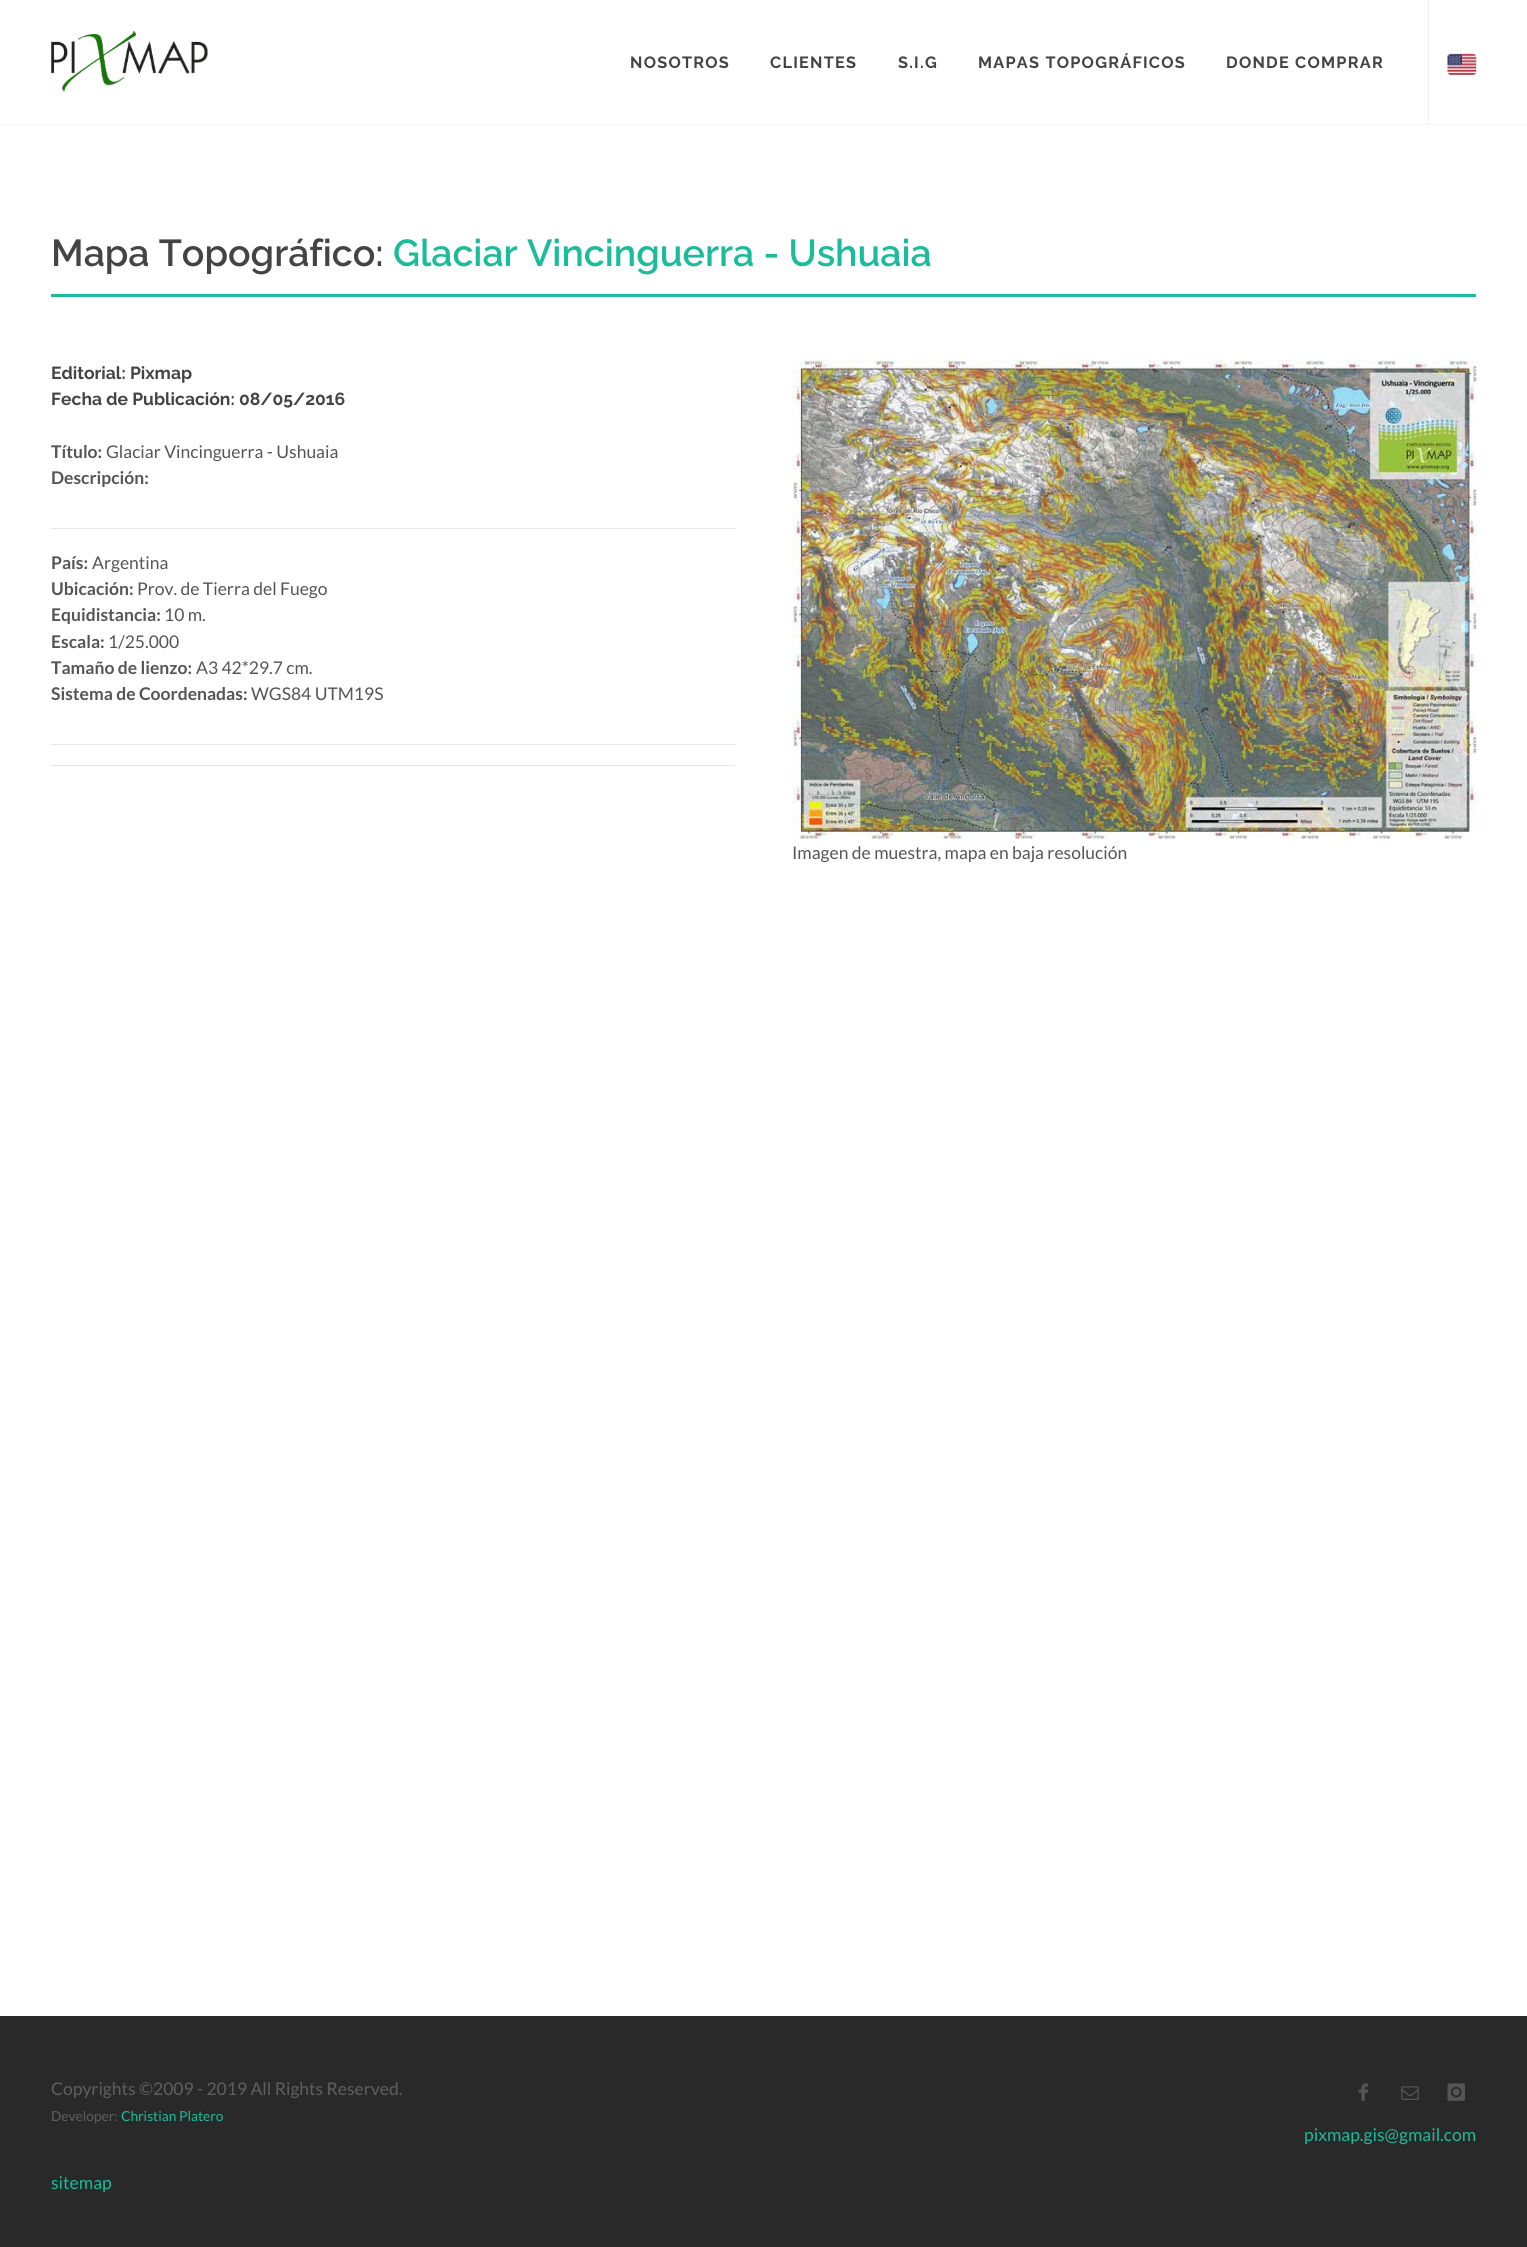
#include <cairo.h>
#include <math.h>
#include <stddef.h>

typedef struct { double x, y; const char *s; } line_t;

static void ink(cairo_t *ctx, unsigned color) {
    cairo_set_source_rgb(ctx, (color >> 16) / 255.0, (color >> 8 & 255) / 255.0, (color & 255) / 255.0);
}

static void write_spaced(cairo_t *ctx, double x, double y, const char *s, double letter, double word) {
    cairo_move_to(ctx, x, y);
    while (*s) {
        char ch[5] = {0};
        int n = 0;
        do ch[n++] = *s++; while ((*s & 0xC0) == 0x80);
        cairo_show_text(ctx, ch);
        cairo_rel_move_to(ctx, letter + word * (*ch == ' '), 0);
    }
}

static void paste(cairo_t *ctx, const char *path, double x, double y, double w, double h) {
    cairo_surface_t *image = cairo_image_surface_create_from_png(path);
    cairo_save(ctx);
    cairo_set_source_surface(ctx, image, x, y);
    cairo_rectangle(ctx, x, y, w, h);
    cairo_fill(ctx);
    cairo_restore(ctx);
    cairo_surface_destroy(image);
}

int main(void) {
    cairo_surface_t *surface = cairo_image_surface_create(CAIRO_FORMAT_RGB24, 1527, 2247);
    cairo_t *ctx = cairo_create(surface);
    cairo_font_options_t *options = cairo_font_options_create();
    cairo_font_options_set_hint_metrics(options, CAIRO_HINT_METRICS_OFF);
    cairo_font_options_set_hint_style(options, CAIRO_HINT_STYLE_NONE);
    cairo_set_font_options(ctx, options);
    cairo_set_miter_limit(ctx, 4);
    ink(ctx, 0xFFFFFF);
    cairo_paint(ctx);
    ink(ctx, 0xF5F5F5);
    cairo_rectangle(ctx, 0, 124, 1527, 1);
    cairo_fill(ctx);
    paste(ctx, "media/1.png", 51, 31, 157, 61);
    ink(ctx, 0xEEEEEE);
    cairo_rectangle(ctx, 1428, 0, 1, 125);
    cairo_fill(ctx);
    cairo_select_font_face(ctx, "Raleway", CAIRO_FONT_SLANT_NORMAL, CAIRO_FONT_WEIGHT_BOLD);
    cairo_set_font_size(ctx, 16.25);
    ink(ctx, 0x444444);
    {
        static const line_t items[] = {
            {630, 68, "NOSOTROS"},
            {770, 68, "CLIENTES"},
            {898, 68, "S.I.G"},
            {978, 68, "MAPAS TOPOGRÁFICOS"},
            {1226, 68, "DONDE COMPRAR"},
        };
        for (size_t i = 0; i < sizeof items / sizeof *items; i++) {
            write_spaced(ctx, items[i].x, items[i].y, items[i].s, 1.25, 0);
        }
    }
    paste(ctx, "media/2.png", 1447, 53, 30, 22);
    ink(ctx, 0x1ABC9C);
    cairo_rectangle(ctx, 51, 294, 1425, 3);
    cairo_fill(ctx);
    cairo_select_font_face(ctx, "Raleway SemiBold", CAIRO_FONT_SLANT_NORMAL, CAIRO_FONT_WEIGHT_NORMAL);
    cairo_set_font_size(ctx, 37.5);
    ink(ctx, 0x444444);
    cairo_move_to(ctx, 51, 266);
    cairo_show_text(ctx, "Mapa Topográfico:");
    ink(ctx, 0x1ABC9C);
    cairo_move_to(ctx, 393, 266);
    cairo_show_text(ctx, "Glaciar Vincinguerra - Ushuaia");
    cairo_select_font_face(ctx, "Raleway", CAIRO_FONT_SLANT_NORMAL, CAIRO_FONT_WEIGHT_BOLD);
    cairo_set_font_size(ctx, 17.5);
    ink(ctx, 0x444444);
    cairo_move_to(ctx, 51, 379);
    cairo_show_text(ctx, "Editorial: Pixmap");
    cairo_move_to(ctx, 51, 405);
    cairo_show_text(ctx, "Fecha de Publicación: 08/05/2016");
    cairo_select_font_face(ctx, "Lato", CAIRO_FONT_SLANT_NORMAL, CAIRO_FONT_WEIGHT_BOLD);
    ink(ctx, 0x555555);
    cairo_move_to(ctx, 51, 458);
    cairo_show_text(ctx, "Título:");
    cairo_select_font_face(ctx, "Lato", CAIRO_FONT_SLANT_NORMAL, CAIRO_FONT_WEIGHT_NORMAL);
    cairo_move_to(ctx, 106, 458);
    cairo_show_text(ctx, "Glaciar Vincinguerra - Ushuaia");
    cairo_select_font_face(ctx, "Lato", CAIRO_FONT_SLANT_NORMAL, CAIRO_FONT_WEIGHT_BOLD);
    cairo_move_to(ctx, 51, 484);
    cairo_show_text(ctx, "Descripción:");
    ink(ctx, 0xE6E6E6);
    cairo_rectangle(ctx, 51, 528, 684, 1);
    cairo_fill(ctx);
    ink(ctx, 0x555555);
    cairo_move_to(ctx, 51, 569);
    cairo_show_text(ctx, "País:");
    cairo_select_font_face(ctx, "Lato", CAIRO_FONT_SLANT_NORMAL, CAIRO_FONT_WEIGHT_NORMAL);
    cairo_move_to(ctx, 92, 569);
    cairo_show_text(ctx, "Argentina");
    cairo_select_font_face(ctx, "Lato", CAIRO_FONT_SLANT_NORMAL, CAIRO_FONT_WEIGHT_BOLD);
    cairo_move_to(ctx, 51, 595);
    cairo_show_text(ctx, "Ubicación:");
    cairo_select_font_face(ctx, "Lato", CAIRO_FONT_SLANT_NORMAL, CAIRO_FONT_WEIGHT_NORMAL);
    cairo_move_to(ctx, 137, 595);
    cairo_show_text(ctx, "Prov. de Tierra del Fuego");
    cairo_select_font_face(ctx, "Lato", CAIRO_FONT_SLANT_NORMAL, CAIRO_FONT_WEIGHT_BOLD);
    cairo_move_to(ctx, 51, 621);
    cairo_show_text(ctx, "Equidistancia:");
    cairo_select_font_face(ctx, "Lato", CAIRO_FONT_SLANT_NORMAL, CAIRO_FONT_WEIGHT_NORMAL);
    cairo_move_to(ctx, 164, 621);
    cairo_show_text(ctx, "10 m.");
    cairo_select_font_face(ctx, "Lato", CAIRO_FONT_SLANT_NORMAL, CAIRO_FONT_WEIGHT_BOLD);
    cairo_move_to(ctx, 51, 648);
    cairo_show_text(ctx, "Escala:");
    cairo_select_font_face(ctx, "Lato", CAIRO_FONT_SLANT_NORMAL, CAIRO_FONT_WEIGHT_NORMAL);
    cairo_move_to(ctx, 108, 648);
    cairo_show_text(ctx, "1/25.000");
    cairo_select_font_face(ctx, "Lato", CAIRO_FONT_SLANT_NORMAL, CAIRO_FONT_WEIGHT_BOLD);
    cairo_move_to(ctx, 51, 674);
    cairo_show_text(ctx, "Tamaño de lienzo:");
    cairo_select_font_face(ctx, "Lato", CAIRO_FONT_SLANT_NORMAL, CAIRO_FONT_WEIGHT_NORMAL);
    cairo_move_to(ctx, 196, 674);
    cairo_show_text(ctx, "A3 42*29.7 cm.");
    cairo_select_font_face(ctx, "Lato", CAIRO_FONT_SLANT_NORMAL, CAIRO_FONT_WEIGHT_BOLD);
    cairo_move_to(ctx, 51, 700);
    cairo_show_text(ctx, "Sistema de Coordenadas:");
    cairo_select_font_face(ctx, "Lato", CAIRO_FONT_SLANT_NORMAL, CAIRO_FONT_WEIGHT_NORMAL);
    cairo_move_to(ctx, 251, 700);
    cairo_show_text(ctx, "WGS84 UTM19S");
    ink(ctx, 0xE6E6E6);
    cairo_rectangle(ctx, 51, 744, 684, 1);
    cairo_fill(ctx);
    cairo_rectangle(ctx, 51, 765, 684, 1);
    cairo_fill(ctx);
    paste(ctx, "media/3.png", 792, 360, 685, 479);
    ink(ctx, 0x555555);
    cairo_move_to(ctx, 792, 859);
    cairo_show_text(ctx, "Imagen de muestra, mapa en baja resolución");
    ink(ctx, 0x292929);
    cairo_rectangle(ctx, 0, 2016, 1527, 231);
    cairo_fill(ctx);
    ink(ctx, 0x5F5F5F);
    cairo_move_to(ctx, 51, 2095);
    cairo_show_text(ctx, "Copyrights ©2009 - 2019 All Rights Reserved.");
    cairo_set_font_size(ctx, 13.75);
    cairo_move_to(ctx, 51, 2121);
    cairo_show_text(ctx, "Developer:");
    ink(ctx, 0x1ABC9C);
    cairo_move_to(ctx, 121, 2121);
    cairo_show_text(ctx, "Christian Platero");
    cairo_set_font_size(ctx, 17.5);
    cairo_move_to(ctx, 51, 2189);
    cairo_show_text(ctx, "sitemap");
    paste(ctx, "media/4.png", 1358, 2083, 11, 18);
    paste(ctx, "media/5.png", 1401, 2086, 18, 14);
    paste(ctx, "media/6.png", 1447, 2083, 18, 18);
    cairo_move_to(ctx, 1304, 2141);
    cairo_show_text(ctx, "pixmap.gis@gmail.com");
    cairo_surface_write_to_png(surface, "image.png");
    cairo_font_options_destroy(options);
    cairo_destroy(ctx);
    cairo_surface_destroy(surface);
    return 0;
}
